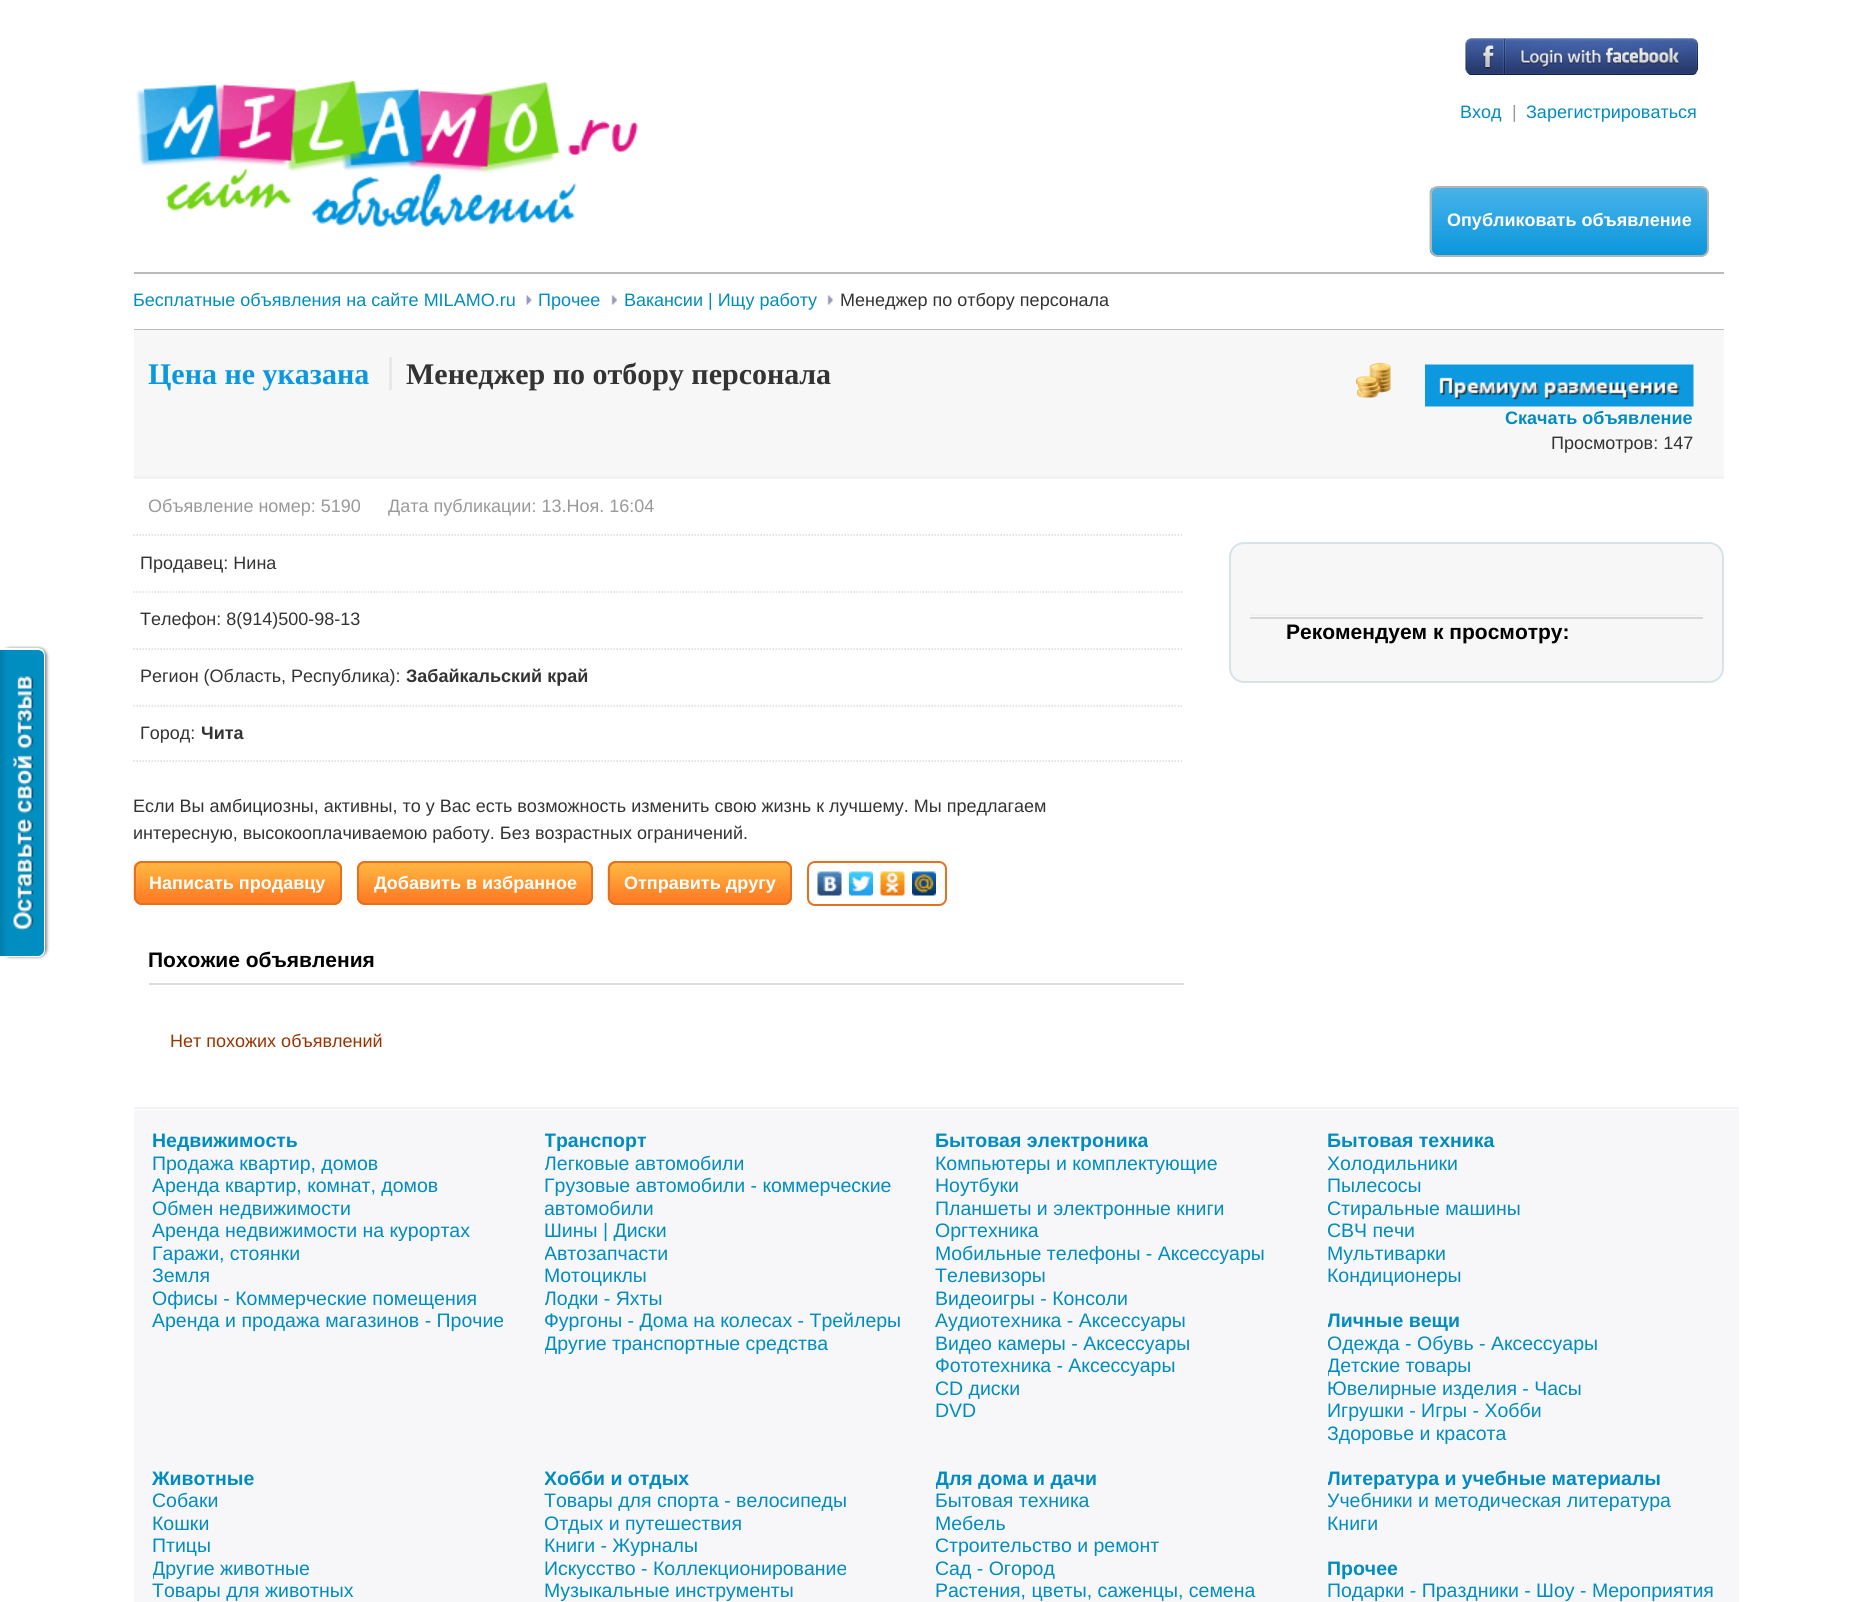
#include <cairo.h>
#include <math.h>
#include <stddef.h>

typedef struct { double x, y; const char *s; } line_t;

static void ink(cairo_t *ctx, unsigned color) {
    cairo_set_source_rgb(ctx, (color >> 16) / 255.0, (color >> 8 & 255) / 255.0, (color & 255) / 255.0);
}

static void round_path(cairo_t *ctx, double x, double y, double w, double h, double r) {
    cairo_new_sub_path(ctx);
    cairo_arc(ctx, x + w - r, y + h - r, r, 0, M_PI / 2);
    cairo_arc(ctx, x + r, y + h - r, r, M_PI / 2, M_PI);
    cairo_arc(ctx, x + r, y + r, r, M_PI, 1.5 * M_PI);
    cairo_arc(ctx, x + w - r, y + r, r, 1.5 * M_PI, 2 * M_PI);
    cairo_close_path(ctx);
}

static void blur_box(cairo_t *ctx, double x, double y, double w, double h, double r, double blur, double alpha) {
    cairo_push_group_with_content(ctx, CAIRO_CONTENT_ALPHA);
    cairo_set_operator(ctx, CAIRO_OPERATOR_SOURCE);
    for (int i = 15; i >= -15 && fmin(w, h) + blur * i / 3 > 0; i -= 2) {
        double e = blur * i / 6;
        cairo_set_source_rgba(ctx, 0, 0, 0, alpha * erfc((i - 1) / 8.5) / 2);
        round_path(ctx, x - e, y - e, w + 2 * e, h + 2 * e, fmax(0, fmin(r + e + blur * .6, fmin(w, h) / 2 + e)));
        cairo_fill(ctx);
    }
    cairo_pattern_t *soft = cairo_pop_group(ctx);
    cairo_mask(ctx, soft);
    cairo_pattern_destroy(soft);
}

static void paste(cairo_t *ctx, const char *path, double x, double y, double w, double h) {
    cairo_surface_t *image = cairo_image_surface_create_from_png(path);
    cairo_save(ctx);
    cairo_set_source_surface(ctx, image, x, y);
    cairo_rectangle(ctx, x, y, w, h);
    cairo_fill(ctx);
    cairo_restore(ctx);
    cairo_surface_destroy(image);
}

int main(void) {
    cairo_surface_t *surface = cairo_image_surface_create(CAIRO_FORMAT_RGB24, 1870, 1602);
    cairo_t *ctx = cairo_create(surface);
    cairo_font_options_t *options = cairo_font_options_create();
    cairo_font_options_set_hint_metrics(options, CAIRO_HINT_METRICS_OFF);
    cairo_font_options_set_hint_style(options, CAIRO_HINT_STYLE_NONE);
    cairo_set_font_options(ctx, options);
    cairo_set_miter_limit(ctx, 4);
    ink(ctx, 0xFFFFFF);
    cairo_paint(ctx);
    ink(ctx, 0x888888);
    blur_box(ctx, 2, 648, 45, 309, 8, 1.5, 1);
    ink(ctx, 0x008DC0);
    cairo_new_path(ctx);
    cairo_move_to(ctx, 0, 648);
    cairo_line_to(ctx, 37, 648);
    cairo_curve_to(ctx, 41.5, 648, 45, 651.5, 45, 656);
    cairo_line_to(ctx, 45, 949);
    cairo_curve_to(ctx, 45, 953.5, 41.5, 957, 37, 957);
    cairo_line_to(ctx, 0, 957);
    cairo_close_path(ctx);
    cairo_fill(ctx);
    paste(ctx, "media/1.png", 0, 650, 6, 306);
    ink(ctx, 0xFFFFFF);
    cairo_set_fill_rule(ctx, CAIRO_FILL_RULE_EVEN_ODD);
    cairo_new_path(ctx);
    cairo_move_to(ctx, 0, 648);
    cairo_line_to(ctx, 38, 648);
    cairo_curve_to(ctx, 42, 648, 45, 651, 45, 656);
    cairo_line_to(ctx, 45, 950);
    cairo_curve_to(ctx, 45, 954, 42, 957, 38, 957);
    cairo_line_to(ctx, 0, 957);
    cairo_close_path(ctx);
    cairo_move_to(ctx, 0, 650);
    cairo_line_to(ctx, 38, 650);
    cairo_curve_to(ctx, 41, 650, 44, 652, 44, 656);
    cairo_line_to(ctx, 44, 950);
    cairo_curve_to(ctx, 44, 953, 41, 956, 38, 956);
    cairo_line_to(ctx, 0, 956);
    cairo_close_path(ctx);
    cairo_fill(ctx);
    paste(ctx, "media/2.png", 13, 676, 21, 255);
    ink(ctx, 0xBBBBBB);
    cairo_rectangle(ctx, 134, 272, 1590, 2);
    cairo_fill(ctx);
    paste(ctx, "media/3.png", 136, 80, 502, 147);
    paste(ctx, "media/4.png", 1465, 37, 233, 38);
    cairo_select_font_face(ctx, "Liberation Sans", CAIRO_FONT_SLANT_NORMAL, CAIRO_FONT_WEIGHT_NORMAL);
    cairo_set_font_size(ctx, 18);
    ink(ctx, 0x008CC0);
    cairo_move_to(ctx, 1460, 118);
    cairo_show_text(ctx, "Вход");
    ink(ctx, 0x999999);
    cairo_move_to(ctx, 1512, 118);
    cairo_show_text(ctx, "|");
    ink(ctx, 0x008CC0);
    cairo_move_to(ctx, 1526, 118);
    cairo_show_text(ctx, "Зарегистрироваться");
    paste(ctx, "media/5.png", 1429, 187, 280, 70);
    round_path(ctx, 1431, 187, 277, 69, 7);
    ink(ctx, 0xB4B4B4);
    cairo_stroke(ctx);
    cairo_select_font_face(ctx, "Liberation Sans", CAIRO_FONT_SLANT_NORMAL, CAIRO_FONT_WEIGHT_BOLD);
    ink(ctx, 0xFFFFFF);
    cairo_move_to(ctx, 1447, 226);
    cairo_show_text(ctx, "Опубликовать объявление");
    ink(ctx, 0xBBBBBB);
    cairo_rectangle(ctx, 134, 329, 1590, 1);
    cairo_fill(ctx);
    cairo_select_font_face(ctx, "Liberation Sans", CAIRO_FONT_SLANT_NORMAL, CAIRO_FONT_WEIGHT_NORMAL);
    ink(ctx, 0x008CC0);
    cairo_move_to(ctx, 133, 306);
    cairo_show_text(ctx, "Бесплатные объявления на сайте MILAMO.ru");
    paste(ctx, "media/6.png", 526, 295, 6, 10);
    cairo_move_to(ctx, 538, 306);
    cairo_show_text(ctx, "Прочее");
    paste(ctx, "media/7.png", 611, 295, 6, 10);
    cairo_move_to(ctx, 624, 306);
    cairo_show_text(ctx, "Вакансии | Ищу работу");
    paste(ctx, "media/8.png", 827, 295, 6, 10);
    ink(ctx, 0x333333);
    cairo_move_to(ctx, 840, 306);
    cairo_show_text(ctx, "Менеджер по отбору персонала");
    ink(ctx, 0xF7F7F7);
    cairo_rectangle(ctx, 134, 330, 1590, 146);
    cairo_fill(ctx);
    ink(ctx, 0xF2F2F2);
    cairo_rectangle(ctx, 134, 476, 1590, 3);
    cairo_fill(ctx);
    cairo_select_font_face(ctx, "Liberation Serif", CAIRO_FONT_SLANT_NORMAL, CAIRO_FONT_WEIGHT_BOLD);
    cairo_set_font_size(ctx, 30);
    ink(ctx, 0x0C98DF);
    cairo_move_to(ctx, 148, 384);
    cairo_show_text(ctx, "Цена не указана");
    ink(ctx, 0xE8E8E8);
    cairo_rectangle(ctx, 389, 357, 3, 33);
    cairo_fill(ctx);
    ink(ctx, 0x333333);
    cairo_move_to(ctx, 406, 384);
    cairo_show_text(ctx, "Менеджер по отбору персонала");
    paste(ctx, "media/9.png", 1356, 363, 35, 35);
    paste(ctx, "media/10.png", 1425, 364, 269, 43);
    cairo_select_font_face(ctx, "Liberation Sans", CAIRO_FONT_SLANT_NORMAL, CAIRO_FONT_WEIGHT_BOLD);
    cairo_set_font_size(ctx, 18);
    ink(ctx, 0x008CC0);
    cairo_move_to(ctx, 1505, 424);
    cairo_show_text(ctx, "Скачать объявление");
    cairo_select_font_face(ctx, "Liberation Sans", CAIRO_FONT_SLANT_NORMAL, CAIRO_FONT_WEIGHT_NORMAL);
    ink(ctx, 0x333333);
    cairo_move_to(ctx, 1551, 449);
    cairo_show_text(ctx, "Просмотров: 147");
    cairo_new_path(ctx);
    cairo_move_to(ctx, 133.5, 535);
    cairo_line_to(ctx, 1183.5, 535);
    ink(ctx, 0xDDDDDD);
    cairo_set_line_width(ctx, 1.5);
    cairo_set_dash(ctx, (double[]){1.5, 1.5}, 2, 0);
    cairo_stroke(ctx);
    ink(ctx, 0x999999);
    cairo_move_to(ctx, 148, 512);
    cairo_show_text(ctx, "Объявление номер: 5190");
    cairo_move_to(ctx, 388, 512);
    cairo_show_text(ctx, "Дата публикации: 13.Ноя. 16:04");
    cairo_new_path(ctx);
    cairo_move_to(ctx, 133.5, 592);
    cairo_line_to(ctx, 1183.5, 592);
    ink(ctx, 0xDDDDDD);
    cairo_stroke(ctx);
    ink(ctx, 0x333333);
    cairo_move_to(ctx, 140, 569);
    cairo_show_text(ctx, "Продавец: Нина");
    cairo_new_path(ctx);
    cairo_move_to(ctx, 133.5, 649);
    cairo_line_to(ctx, 1183.5, 649);
    ink(ctx, 0xDDDDDD);
    cairo_stroke(ctx);
    ink(ctx, 0x333333);
    cairo_move_to(ctx, 140, 625);
    cairo_show_text(ctx, "Телефон: 8(914)500-98-13");
    cairo_new_path(ctx);
    cairo_move_to(ctx, 133.5, 706);
    cairo_line_to(ctx, 1183.5, 706);
    ink(ctx, 0xDDDDDD);
    cairo_stroke(ctx);
    ink(ctx, 0x333333);
    cairo_move_to(ctx, 140, 682);
    cairo_show_text(ctx, "Регион (Область, Республика):");
    cairo_select_font_face(ctx, "Liberation Sans", CAIRO_FONT_SLANT_NORMAL, CAIRO_FONT_WEIGHT_BOLD);
    cairo_move_to(ctx, 406, 682);
    cairo_show_text(ctx, "Забайкальский край");
    cairo_new_path(ctx);
    cairo_move_to(ctx, 133.5, 761);
    cairo_line_to(ctx, 1183.5, 761);
    ink(ctx, 0xDDDDDD);
    cairo_stroke(ctx);
    cairo_select_font_face(ctx, "Liberation Sans", CAIRO_FONT_SLANT_NORMAL, CAIRO_FONT_WEIGHT_NORMAL);
    ink(ctx, 0x333333);
    cairo_move_to(ctx, 140, 739);
    cairo_show_text(ctx, "Город:");
    cairo_select_font_face(ctx, "Liberation Sans", CAIRO_FONT_SLANT_NORMAL, CAIRO_FONT_WEIGHT_BOLD);
    cairo_move_to(ctx, 201, 739);
    cairo_show_text(ctx, "Чита");
    cairo_select_font_face(ctx, "Liberation Sans", CAIRO_FONT_SLANT_NORMAL, CAIRO_FONT_WEIGHT_NORMAL);
    cairo_move_to(ctx, 133, 812);
    cairo_show_text(ctx, "Если Вы амбициозны, активны, то у Вас есть возможность изменить свою жизнь к лучшему. Мы предлагаем");
    cairo_move_to(ctx, 133, 839);
    cairo_show_text(ctx, "интересную, высокооплачиваемою работу. Без возрастных ограничений.");
    ink(ctx, 0xFF7F26);
    round_path(ctx, 134, 861, 208, 44, 8);
    cairo_fill(ctx);
    paste(ctx, "media/11.png", 133, 862, 209, 38);
    round_path(ctx, 135, 862, 206, 42, 7);
    ink(ctx, 0xE67020);
    cairo_set_line_width(ctx, 2);
    cairo_set_dash(ctx, NULL, 0, 0);
    cairo_stroke(ctx);
    cairo_select_font_face(ctx, "Liberation Sans", CAIRO_FONT_SLANT_NORMAL, CAIRO_FONT_WEIGHT_BOLD);
    ink(ctx, 0xFFFFFF);
    cairo_move_to(ctx, 149, 889);
    cairo_show_text(ctx, "Написать продавцу");
    ink(ctx, 0xFF7F26);
    round_path(ctx, 357, 861, 236, 44, 8);
    cairo_fill(ctx);
    paste(ctx, "media/12.png", 357, 862, 236, 38);
    round_path(ctx, 358, 862, 234, 42, 7);
    ink(ctx, 0xE67020);
    cairo_stroke(ctx);
    ink(ctx, 0xFFFFFF);
    cairo_move_to(ctx, 374, 889);
    cairo_show_text(ctx, "Добавить в избранное");
    ink(ctx, 0xFF7F26);
    round_path(ctx, 608, 861, 184, 44, 8);
    cairo_fill(ctx);
    paste(ctx, "media/13.png", 607, 862, 185, 38);
    round_path(ctx, 609, 862, 182, 42, 7);
    ink(ctx, 0xE67020);
    cairo_stroke(ctx);
    ink(ctx, 0xFFFFFF);
    cairo_move_to(ctx, 624, 889);
    cairo_show_text(ctx, "Отправить другу");
    round_path(ctx, 808, 862, 138, 43, 7);
    ink(ctx, 0xE67020);
    cairo_stroke(ctx);
    paste(ctx, "media/14.png", 817, 871, 25, 25);
    paste(ctx, "media/15.png", 849, 871, 24, 25);
    paste(ctx, "media/16.png", 880, 871, 25, 25);
    paste(ctx, "media/17.png", 912, 871, 24, 25);
    ink(ctx, 0xDDDDDD);
    cairo_rectangle(ctx, 149, 983, 1035, 2);
    cairo_fill(ctx);
    cairo_set_font_size(ctx, 21);
    ink(ctx, 0x000000);
    cairo_move_to(ctx, 148, 967);
    cairo_show_text(ctx, "Похожие объявления");
    cairo_select_font_face(ctx, "Liberation Sans", CAIRO_FONT_SLANT_NORMAL, CAIRO_FONT_WEIGHT_NORMAL);
    cairo_set_font_size(ctx, 18);
    ink(ctx, 0x993300);
    cairo_move_to(ctx, 170, 1047);
    cairo_show_text(ctx, "Нет похожих объявлений");
    ink(ctx, 0xF7F7F7);
    round_path(ctx, 1230, 543, 493, 139, 14);
    cairo_fill_preserve(ctx);
    ink(ctx, 0xD7E3E7);
    cairo_stroke(ctx);
    ink(ctx, 0xF2F2F2);
    cairo_rectangle(ctx, 1250, 614, 453, 2);
    cairo_fill(ctx);
    ink(ctx, 0xD7D7D7);
    cairo_rectangle(ctx, 1250, 617, 453, 2);
    cairo_fill(ctx);
    cairo_select_font_face(ctx, "Liberation Sans", CAIRO_FONT_SLANT_NORMAL, CAIRO_FONT_WEIGHT_BOLD);
    cairo_set_font_size(ctx, 21);
    ink(ctx, 0x000000);
    cairo_move_to(ctx, 1286, 639);
    cairo_show_text(ctx, "Рекомендуем к просмотру:");
    ink(ctx, 0xF2F2F2);
    cairo_rectangle(ctx, 134, 1107, 1605, 2);
    cairo_fill(ctx);
    ink(ctx, 0xF7F7FA);
    cairo_rectangle(ctx, 134, 1110, 1605, 492);
    cairo_fill(ctx);
    cairo_set_font_size(ctx, 19.5);
    ink(ctx, 0x008CC0);
    cairo_move_to(ctx, 152, 1147);
    cairo_show_text(ctx, "Недвижимость");
    cairo_select_font_face(ctx, "Liberation Sans", CAIRO_FONT_SLANT_NORMAL, CAIRO_FONT_WEIGHT_NORMAL);
    {
        static const line_t items[] = {
            {152, 1170, "Продажа квартир, домов"},
            {152, 1192, "Аренда квартир, комнат, домов"},
            {152, 1215, "Обмен недвижимости"},
            {152, 1237, "Аренда недвижимости на курортах"},
            {152, 1260, "Гаражи, стоянки"},
            {152, 1282, "Земля"},
            {152, 1305, "Офисы - Коммерческие помещения"},
            {152, 1327, "Аренда и продажа магазинов - Прочие"},
        };
        for (size_t i = 0; i < sizeof items / sizeof *items; i++) {
            cairo_move_to(ctx, items[i].x, items[i].y);
            cairo_show_text(ctx, items[i].s);
        }
    }
    cairo_save(ctx);
    cairo_set_fill_rule(ctx, CAIRO_FILL_RULE_WINDING);
    cairo_rectangle(ctx, 545, 1130, 391, 225);
    cairo_clip(ctx);
    cairo_select_font_face(ctx, "Liberation Sans", CAIRO_FONT_SLANT_NORMAL, CAIRO_FONT_WEIGHT_BOLD);
    cairo_move_to(ctx, 544, 1147);
    cairo_show_text(ctx, "Транспорт");
    cairo_select_font_face(ctx, "Liberation Sans", CAIRO_FONT_SLANT_NORMAL, CAIRO_FONT_WEIGHT_NORMAL);
    cairo_move_to(ctx, 544, 1170);
    cairo_show_text(ctx, "Легковые автомобили");
    cairo_restore(ctx);
    cairo_move_to(ctx, 544, 1192);
    cairo_show_text(ctx, "Грузовые автомобили - коммерческие");
    cairo_save(ctx);
    cairo_set_fill_rule(ctx, CAIRO_FILL_RULE_WINDING);
    cairo_rectangle(ctx, 545, 1130, 391, 225);
    cairo_clip(ctx);
    cairo_move_to(ctx, 544, 1215);
    cairo_show_text(ctx, "автомобили");
    cairo_restore(ctx);
    cairo_move_to(ctx, 544, 1237);
    cairo_show_text(ctx, "Шины | Диски");
    cairo_save(ctx);
    cairo_set_fill_rule(ctx, CAIRO_FILL_RULE_WINDING);
    cairo_rectangle(ctx, 545, 1130, 391, 225);
    cairo_clip(ctx);
    cairo_move_to(ctx, 544, 1260);
    cairo_show_text(ctx, "Автозапчасти");
    cairo_restore(ctx);
    cairo_move_to(ctx, 544, 1282);
    cairo_show_text(ctx, "Мотоциклы");
    cairo_save(ctx);
    cairo_set_fill_rule(ctx, CAIRO_FILL_RULE_WINDING);
    cairo_rectangle(ctx, 545, 1130, 391, 225);
    cairo_clip(ctx);
    cairo_move_to(ctx, 544, 1305);
    cairo_show_text(ctx, "Лодки - Яхты");
    cairo_restore(ctx);
    cairo_move_to(ctx, 544, 1327);
    cairo_show_text(ctx, "Фургоны - Дома на колесах - Трейлеры");
    cairo_save(ctx);
    cairo_set_fill_rule(ctx, CAIRO_FILL_RULE_WINDING);
    cairo_rectangle(ctx, 545, 1130, 391, 225);
    cairo_clip(ctx);
    cairo_move_to(ctx, 544, 1350);
    cairo_show_text(ctx, "Другие транспортные средства");
    cairo_restore(ctx);
    cairo_select_font_face(ctx, "Liberation Sans", CAIRO_FONT_SLANT_NORMAL, CAIRO_FONT_WEIGHT_BOLD);
    cairo_move_to(ctx, 935, 1147);
    cairo_show_text(ctx, "Бытовая электроника");
    cairo_select_font_face(ctx, "Liberation Sans", CAIRO_FONT_SLANT_NORMAL, CAIRO_FONT_WEIGHT_NORMAL);
    {
        static const line_t items[] = {
            {935, 1170, "Компьютеры и комплектующие"},
            {935, 1192, "Ноутбуки"},
            {935, 1215, "Планшеты и электронные книги"},
            {935, 1237, "Оргтехника"},
            {935, 1260, "Мобильные телефоны - Аксессуары"},
            {935, 1282, "Телевизоры"},
            {935, 1305, "Видеоигры - Консоли"},
            {935, 1327, "Аудиотехника - Аксессуары"},
            {935, 1350, "Видео камеры - Аксессуары"},
            {935, 1372, "Фототехника - Аксессуары"},
            {935, 1395, "CD диски"},
            {935, 1417, "DVD"},
        };
        for (size_t i = 0; i < sizeof items / sizeof *items; i++) {
            cairo_move_to(ctx, items[i].x, items[i].y);
            cairo_show_text(ctx, items[i].s);
        }
    }
    cairo_select_font_face(ctx, "Liberation Sans", CAIRO_FONT_SLANT_NORMAL, CAIRO_FONT_WEIGHT_BOLD);
    cairo_move_to(ctx, 1327, 1147);
    cairo_show_text(ctx, "Бытовая техника");
    cairo_select_font_face(ctx, "Liberation Sans", CAIRO_FONT_SLANT_NORMAL, CAIRO_FONT_WEIGHT_NORMAL);
    cairo_move_to(ctx, 1327, 1170);
    cairo_show_text(ctx, "Холодильники");
    cairo_move_to(ctx, 1327, 1192);
    cairo_show_text(ctx, "Пылесосы");
    cairo_save(ctx);
    cairo_set_fill_rule(ctx, CAIRO_FILL_RULE_WINDING);
    cairo_rectangle(ctx, 1328, 1130, 391, 157);
    cairo_clip(ctx);
    cairo_move_to(ctx, 1327, 1215);
    cairo_show_text(ctx, "Стиральные машины");
    cairo_move_to(ctx, 1327, 1237);
    cairo_show_text(ctx, "СВЧ печи");
    cairo_restore(ctx);
    cairo_move_to(ctx, 1327, 1260);
    cairo_show_text(ctx, "Мультиварки");
    cairo_move_to(ctx, 1327, 1282);
    cairo_show_text(ctx, "Кондиционеры");
    cairo_save(ctx);
    cairo_set_fill_rule(ctx, CAIRO_FILL_RULE_WINDING);
    cairo_rectangle(ctx, 1328, 1310, 391, 135);
    cairo_clip(ctx);
    cairo_select_font_face(ctx, "Liberation Sans", CAIRO_FONT_SLANT_NORMAL, CAIRO_FONT_WEIGHT_BOLD);
    cairo_move_to(ctx, 1327, 1327);
    cairo_show_text(ctx, "Личные вещи");
    cairo_select_font_face(ctx, "Liberation Sans", CAIRO_FONT_SLANT_NORMAL, CAIRO_FONT_WEIGHT_NORMAL);
    cairo_move_to(ctx, 1327, 1350);
    cairo_show_text(ctx, "Одежда - Обувь - Аксессуары");
    cairo_move_to(ctx, 1327, 1372);
    cairo_show_text(ctx, "Детские товары");
    cairo_restore(ctx);
    cairo_move_to(ctx, 1327, 1395);
    cairo_show_text(ctx, "Ювелирные изделия - Часы");
    cairo_move_to(ctx, 1327, 1417);
    cairo_show_text(ctx, "Игрушки - Игры - Хобби");
    cairo_save(ctx);
    cairo_set_fill_rule(ctx, CAIRO_FILL_RULE_WINDING);
    cairo_rectangle(ctx, 1328, 1310, 391, 135);
    cairo_clip(ctx);
    cairo_move_to(ctx, 1327, 1440);
    cairo_show_text(ctx, "Здоровье и красота");
    cairo_restore(ctx);
    cairo_select_font_face(ctx, "Liberation Sans", CAIRO_FONT_SLANT_NORMAL, CAIRO_FONT_WEIGHT_BOLD);
    cairo_move_to(ctx, 152, 1485);
    cairo_show_text(ctx, "Животные");
    cairo_select_font_face(ctx, "Liberation Sans", CAIRO_FONT_SLANT_NORMAL, CAIRO_FONT_WEIGHT_NORMAL);
    {
        static const line_t items[] = {
            {152, 1507, "Собаки"},
            {152, 1530, "Кошки"},
            {152, 1552, "Птицы"},
        };
        for (size_t i = 0; i < sizeof items / sizeof *items; i++) {
            cairo_move_to(ctx, items[i].x, items[i].y);
            cairo_show_text(ctx, items[i].s);
        }
    }
    cairo_save(ctx);
    cairo_set_fill_rule(ctx, CAIRO_FILL_RULE_WINDING);
    cairo_rectangle(ctx, 153, 1467, 392, 135);
    cairo_clip(ctx);
    cairo_move_to(ctx, 152, 1575);
    cairo_show_text(ctx, "Другие животные");
    cairo_restore(ctx);
    cairo_move_to(ctx, 152, 1597);
    cairo_show_text(ctx, "Товары для животных");
    cairo_save(ctx);
    cairo_set_fill_rule(ctx, CAIRO_FILL_RULE_WINDING);
    cairo_rectangle(ctx, 545, 1467, 391, 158);
    cairo_clip(ctx);
    cairo_select_font_face(ctx, "Liberation Sans", CAIRO_FONT_SLANT_NORMAL, CAIRO_FONT_WEIGHT_BOLD);
    cairo_move_to(ctx, 544, 1485);
    cairo_show_text(ctx, "Хобби и отдых");
    cairo_restore(ctx);
    cairo_move_to(ctx, 544, 1507);
    cairo_show_text(ctx, "Товары для спорта - велосипеды");
    cairo_save(ctx);
    cairo_set_fill_rule(ctx, CAIRO_FILL_RULE_WINDING);
    cairo_rectangle(ctx, 545, 1467, 391, 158);
    cairo_clip(ctx);
    cairo_move_to(ctx, 544, 1530);
    cairo_show_text(ctx, "Отдых и путешествия");
    cairo_restore(ctx);
    {
        static const line_t items[] = {
            {544, 1552, "Книги - Журналы"},
            {544, 1575, "Искусство - Коллекционирование"},
            {544, 1597, "Музыкальные инструменты"},
        };
        for (size_t i = 0; i < sizeof items / sizeof *items; i++) {
            cairo_move_to(ctx, items[i].x, items[i].y);
            cairo_show_text(ctx, items[i].s);
        }
    }
    cairo_save(ctx);
    cairo_set_fill_rule(ctx, CAIRO_FILL_RULE_WINDING);
    cairo_rectangle(ctx, 936, 1467, 392, 135);
    cairo_clip(ctx);
    cairo_select_font_face(ctx, "Liberation Sans", CAIRO_FONT_SLANT_NORMAL, CAIRO_FONT_WEIGHT_BOLD);
    cairo_move_to(ctx, 935, 1485);
    cairo_show_text(ctx, "Для дома и дачи");
    cairo_restore(ctx);
    {
        static const line_t items[] = {
            {935, 1507, "Бытовая техника"},
            {935, 1530, "Мебель"},
            {935, 1552, "Строительство и ремонт"},
            {935, 1575, "Сад - Огород"},
            {935, 1597, "Растения, цветы, саженцы, семена"},
        };
        for (size_t i = 0; i < sizeof items / sizeof *items; i++) {
            cairo_move_to(ctx, items[i].x, items[i].y);
            cairo_show_text(ctx, items[i].s);
        }
    }
    cairo_save(ctx);
    cairo_set_fill_rule(ctx, CAIRO_FILL_RULE_WINDING);
    cairo_rectangle(ctx, 1328, 1467, 391, 68);
    cairo_clip(ctx);
    cairo_select_font_face(ctx, "Liberation Sans", CAIRO_FONT_SLANT_NORMAL, CAIRO_FONT_WEIGHT_BOLD);
    cairo_move_to(ctx, 1327, 1485);
    cairo_show_text(ctx, "Литература и учебные материалы");
    cairo_select_font_face(ctx, "Liberation Sans", CAIRO_FONT_SLANT_NORMAL, CAIRO_FONT_WEIGHT_NORMAL);
    cairo_move_to(ctx, 1327, 1507);
    cairo_show_text(ctx, "Учебники и методическая литература");
    cairo_restore(ctx);
    cairo_move_to(ctx, 1327, 1530);
    cairo_show_text(ctx, "Книги");
    cairo_select_font_face(ctx, "Liberation Sans", CAIRO_FONT_SLANT_NORMAL, CAIRO_FONT_WEIGHT_BOLD);
    cairo_move_to(ctx, 1327, 1575);
    cairo_show_text(ctx, "Прочее");
    cairo_select_font_face(ctx, "Liberation Sans", CAIRO_FONT_SLANT_NORMAL, CAIRO_FONT_WEIGHT_NORMAL);
    cairo_move_to(ctx, 1327, 1597);
    cairo_show_text(ctx, "Подарки - Праздники - Шоу - Мероприятия");
    cairo_surface_write_to_png(surface, "image.png");
    cairo_font_options_destroy(options);
    cairo_destroy(ctx);
    cairo_surface_destroy(surface);
    return 0;
}
